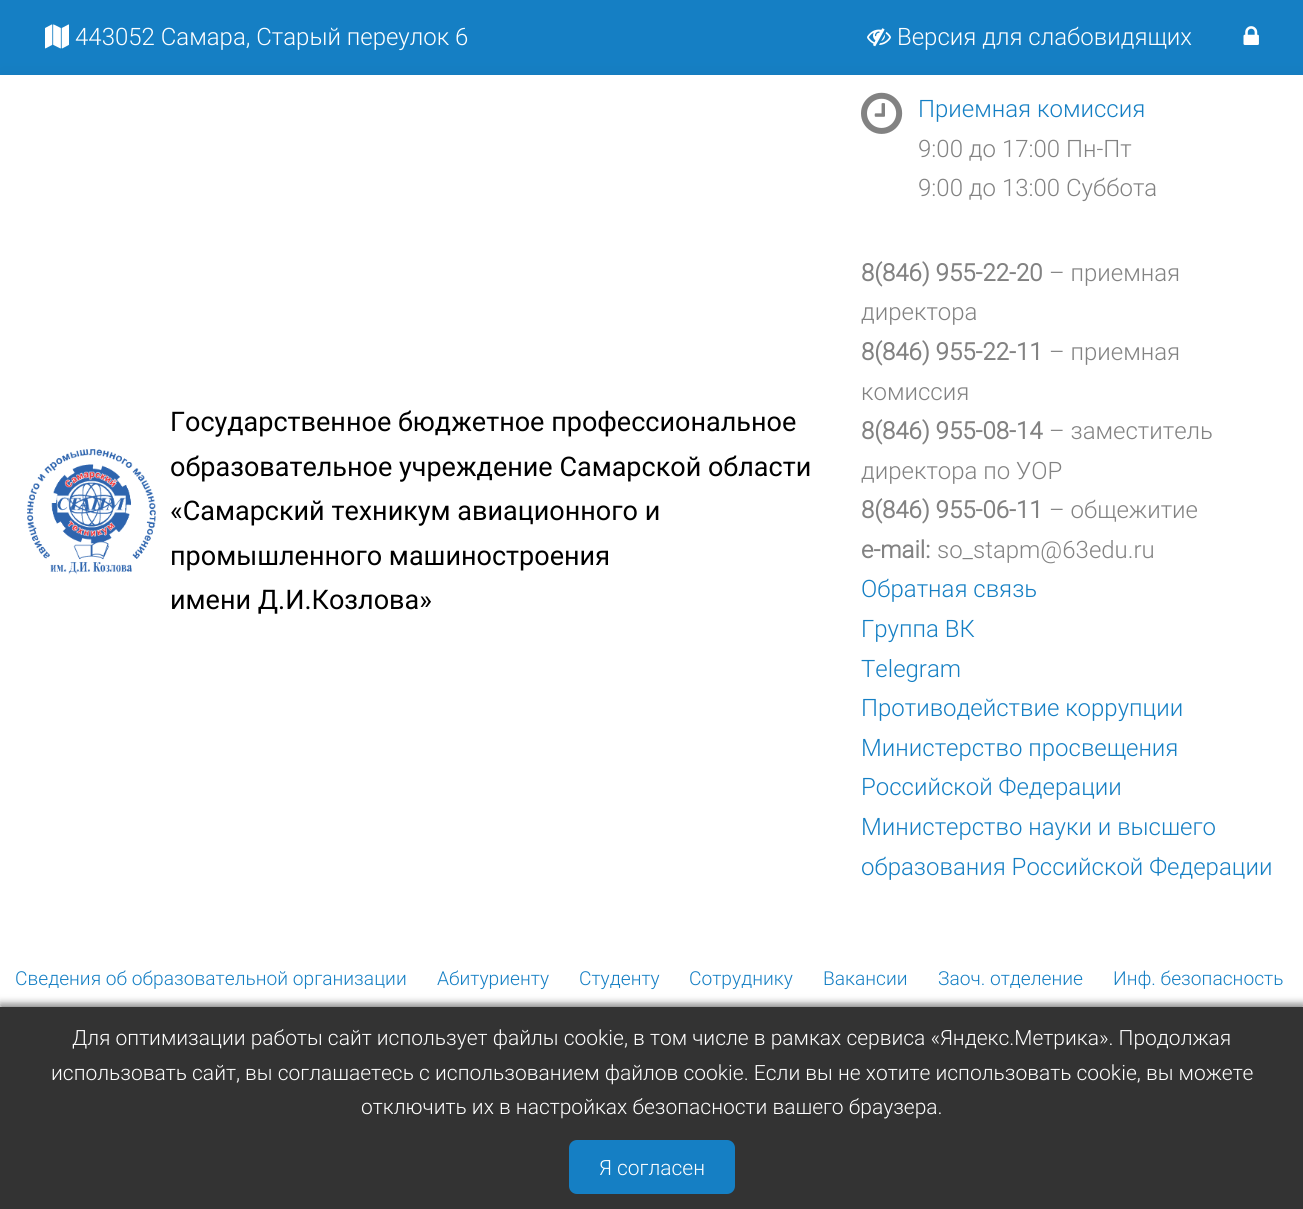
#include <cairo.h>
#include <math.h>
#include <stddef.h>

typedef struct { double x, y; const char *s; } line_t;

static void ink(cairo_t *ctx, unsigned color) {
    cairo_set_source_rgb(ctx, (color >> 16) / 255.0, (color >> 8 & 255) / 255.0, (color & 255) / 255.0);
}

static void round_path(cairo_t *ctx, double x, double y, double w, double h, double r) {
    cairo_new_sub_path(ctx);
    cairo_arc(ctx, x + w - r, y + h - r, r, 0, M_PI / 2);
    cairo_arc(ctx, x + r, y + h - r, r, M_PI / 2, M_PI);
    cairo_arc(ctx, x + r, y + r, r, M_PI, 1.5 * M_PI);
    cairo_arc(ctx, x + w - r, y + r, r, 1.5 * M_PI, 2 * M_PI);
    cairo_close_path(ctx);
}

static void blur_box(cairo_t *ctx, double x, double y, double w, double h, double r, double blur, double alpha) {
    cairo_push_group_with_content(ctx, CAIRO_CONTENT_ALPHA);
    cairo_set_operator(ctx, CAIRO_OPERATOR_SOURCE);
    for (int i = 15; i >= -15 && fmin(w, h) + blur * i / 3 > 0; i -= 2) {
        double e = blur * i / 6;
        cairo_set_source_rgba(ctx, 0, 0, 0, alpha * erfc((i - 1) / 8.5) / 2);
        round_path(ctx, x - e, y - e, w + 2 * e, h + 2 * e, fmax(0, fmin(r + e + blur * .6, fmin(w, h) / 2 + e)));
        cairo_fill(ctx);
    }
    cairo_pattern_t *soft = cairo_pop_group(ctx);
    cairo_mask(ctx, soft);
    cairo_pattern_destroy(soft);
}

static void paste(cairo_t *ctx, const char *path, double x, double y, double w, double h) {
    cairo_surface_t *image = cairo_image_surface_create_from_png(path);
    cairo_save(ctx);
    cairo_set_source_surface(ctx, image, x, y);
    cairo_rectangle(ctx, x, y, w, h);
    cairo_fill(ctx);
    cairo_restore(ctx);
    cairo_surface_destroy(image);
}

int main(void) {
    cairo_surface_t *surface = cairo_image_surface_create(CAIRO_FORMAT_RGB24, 1303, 1209);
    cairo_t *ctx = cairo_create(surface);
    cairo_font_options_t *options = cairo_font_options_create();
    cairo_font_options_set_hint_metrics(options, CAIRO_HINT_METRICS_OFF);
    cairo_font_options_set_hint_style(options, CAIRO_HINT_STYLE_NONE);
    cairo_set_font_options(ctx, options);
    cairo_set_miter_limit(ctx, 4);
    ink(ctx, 0x157FC4);
    cairo_paint(ctx);
    paste(ctx, "media/1.png", 45, 24, 24, 25);
    ink(ctx, 0x000000);
    blur_box(ctx, 0, 83, 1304, 871, 0, 11, 0.1);
    cairo_select_font_face(ctx, "Roboto Light", CAIRO_FONT_SLANT_NORMAL, CAIRO_FONT_WEIGHT_NORMAL);
    cairo_set_font_size(ctx, 24);
    ink(ctx, 0xFFFFFF);
    cairo_move_to(ctx, 75, 45);
    cairo_show_text(ctx, "443052 Самара, Старый переулок 6");
    paste(ctx, "media/2.png", 867, 28, 24, 19);
    cairo_move_to(ctx, 897, 45);
    cairo_show_text(ctx, "Версия для слабовидящих");
    paste(ctx, "media/3.png", 1243, 26, 16, 19);
    cairo_rectangle(ctx, 0, 75, 1303, 932);
    cairo_fill(ctx);
    paste(ctx, "media/4.png", 27, 449, 129, 126);
    cairo_select_font_face(ctx, "Roboto", CAIRO_FONT_SLANT_NORMAL, CAIRO_FONT_WEIGHT_NORMAL);
    cairo_set_font_size(ctx, 27);
    ink(ctx, 0x000000);
    {
        static const line_t items[] = {
            {170, 431, "Государственное бюджетное профессиональное"},
            {170, 476, "образовательное учреждение Самарской области"},
            {170, 520, "«Самарский техникум авиационного и"},
            {170, 565, "промышленного машиностроения"},
            {170, 609, "имени Д.И.Козлова»"},
        };
        for (size_t i = 0; i < sizeof items / sizeof *items; i++) {
            cairo_move_to(ctx, items[i].x, items[i].y);
            cairo_show_text(ctx, items[i].s);
        }
    }
    paste(ctx, "media/5.png", 861, 92, 42, 42);
    cairo_select_font_face(ctx, "Roboto Light", CAIRO_FONT_SLANT_NORMAL, CAIRO_FONT_WEIGHT_NORMAL);
    cairo_set_font_size(ctx, 24);
    ink(ctx, 0x157FC4);
    cairo_move_to(ctx, 918, 117);
    cairo_show_text(ctx, "Приемная комиссия");
    ink(ctx, 0x828282);
    cairo_move_to(ctx, 918, 157);
    cairo_show_text(ctx, "9:00 до 17:00 Пн-Пт");
    cairo_move_to(ctx, 918, 196);
    cairo_show_text(ctx, "9:00 до 13:00 Cуббота");
    cairo_select_font_face(ctx, "Roboto", CAIRO_FONT_SLANT_NORMAL, CAIRO_FONT_WEIGHT_BOLD);
    cairo_move_to(ctx, 861, 281);
    cairo_show_text(ctx, "8(846) 955-22-20");
    cairo_select_font_face(ctx, "Roboto Light", CAIRO_FONT_SLANT_NORMAL, CAIRO_FONT_WEIGHT_NORMAL);
    cairo_move_to(ctx, 1049, 281);
    cairo_show_text(ctx, "– приемная");
    cairo_move_to(ctx, 861, 320);
    cairo_show_text(ctx, "директора");
    cairo_select_font_face(ctx, "Roboto", CAIRO_FONT_SLANT_NORMAL, CAIRO_FONT_WEIGHT_BOLD);
    cairo_move_to(ctx, 861, 360);
    cairo_show_text(ctx, "8(846) 955-22-11");
    cairo_select_font_face(ctx, "Roboto Light", CAIRO_FONT_SLANT_NORMAL, CAIRO_FONT_WEIGHT_NORMAL);
    cairo_move_to(ctx, 1049, 360);
    cairo_show_text(ctx, "– приемная");
    cairo_move_to(ctx, 861, 400);
    cairo_show_text(ctx, "комиссия");
    cairo_select_font_face(ctx, "Roboto", CAIRO_FONT_SLANT_NORMAL, CAIRO_FONT_WEIGHT_BOLD);
    cairo_move_to(ctx, 861, 439);
    cairo_show_text(ctx, "8(846) 955-08-14");
    cairo_select_font_face(ctx, "Roboto Light", CAIRO_FONT_SLANT_NORMAL, CAIRO_FONT_WEIGHT_NORMAL);
    cairo_move_to(ctx, 1049, 439);
    cairo_show_text(ctx, "– заместитель");
    cairo_move_to(ctx, 861, 479);
    cairo_show_text(ctx, "директора по УОР");
    cairo_select_font_face(ctx, "Roboto", CAIRO_FONT_SLANT_NORMAL, CAIRO_FONT_WEIGHT_BOLD);
    cairo_move_to(ctx, 861, 518);
    cairo_show_text(ctx, "8(846) 955-06-11");
    cairo_select_font_face(ctx, "Roboto Light", CAIRO_FONT_SLANT_NORMAL, CAIRO_FONT_WEIGHT_NORMAL);
    cairo_move_to(ctx, 1049, 518);
    cairo_show_text(ctx, "– общежитие");
    cairo_select_font_face(ctx, "Roboto", CAIRO_FONT_SLANT_NORMAL, CAIRO_FONT_WEIGHT_BOLD);
    cairo_move_to(ctx, 861, 558);
    cairo_show_text(ctx, "e-mail:");
    cairo_select_font_face(ctx, "Roboto Light", CAIRO_FONT_SLANT_NORMAL, CAIRO_FONT_WEIGHT_NORMAL);
    cairo_move_to(ctx, 937, 558);
    cairo_show_text(ctx, "so_stapm@63edu.ru");
    ink(ctx, 0x157FC4);
    {
        static const line_t items[] = {
            {861, 597, "Обратная связь"},
            {861, 637, "Группа ВК"},
            {861, 677, "Telegram"},
            {861, 716, "Противодействие коррупции"},
            {861, 756, "Министерство просвещения"},
            {861, 795, "Российской Федерации"},
            {861, 835, "Министерство науки и высшего"},
            {861, 875, "образования Российской Федерации"},
        };
        for (size_t i = 0; i < sizeof items / sizeof *items; i++) {
            cairo_move_to(ctx, items[i].x, items[i].y);
            cairo_show_text(ctx, items[i].s);
        }
    }
    cairo_set_font_size(ctx, 19.2);
    {
        static const line_t items[] = {
            {15, 985, "Сведения об образовательной организации"},
            {437, 985, "Абитуриенту"},
            {579, 985, "Студенту"},
            {689, 985, "Сотруднику"},
            {823, 985, "Вакансии"},
            {938, 985, "Заоч. отделение"},
            {1113, 985, "Инф. безопасность"},
        };
        for (size_t i = 0; i < sizeof items / sizeof *items; i++) {
            cairo_move_to(ctx, items[i].x, items[i].y);
            cairo_show_text(ctx, items[i].s);
        }
    }
    ink(ctx, 0x000000);
    blur_box(ctx, 0, 1004, 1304, 202, 0, 4, 0.5);
    ink(ctx, 0x333333);
    cairo_rectangle(ctx, 0, 1007, 1303, 202);
    cairo_fill(ctx);
    cairo_set_font_size(ctx, 21);
    ink(ctx, 0xFFFFFF);
    {
        static const line_t items[] = {
            {72, 1045, "Для оптимизации работы сайт использует файлы cookie, в том числе в рамках сервиса «Яндекс.Метрика». Продолжая"},
            {51, 1080, "использовать сайт, вы соглашаетесь с использованием файлов cookie. Если вы не хотите использовать cookie, вы можете"},
            {361, 1114, "отключить их в настройках безопасности вашего браузера."},
        };
        for (size_t i = 0; i < sizeof items / sizeof *items; i++) {
            cairo_move_to(ctx, items[i].x, items[i].y);
            cairo_show_text(ctx, items[i].s);
        }
    }
    ink(ctx, 0x157FC4);
    round_path(ctx, 569, 1140, 166, 54, 8);
    cairo_fill(ctx);
    ink(ctx, 0xFFFFFF);
    cairo_move_to(ctx, 599, 1175);
    cairo_show_text(ctx, "Я согласен");
    cairo_surface_write_to_png(surface, "image.png");
    cairo_font_options_destroy(options);
    cairo_destroy(ctx);
    cairo_surface_destroy(surface);
    return 0;
}
